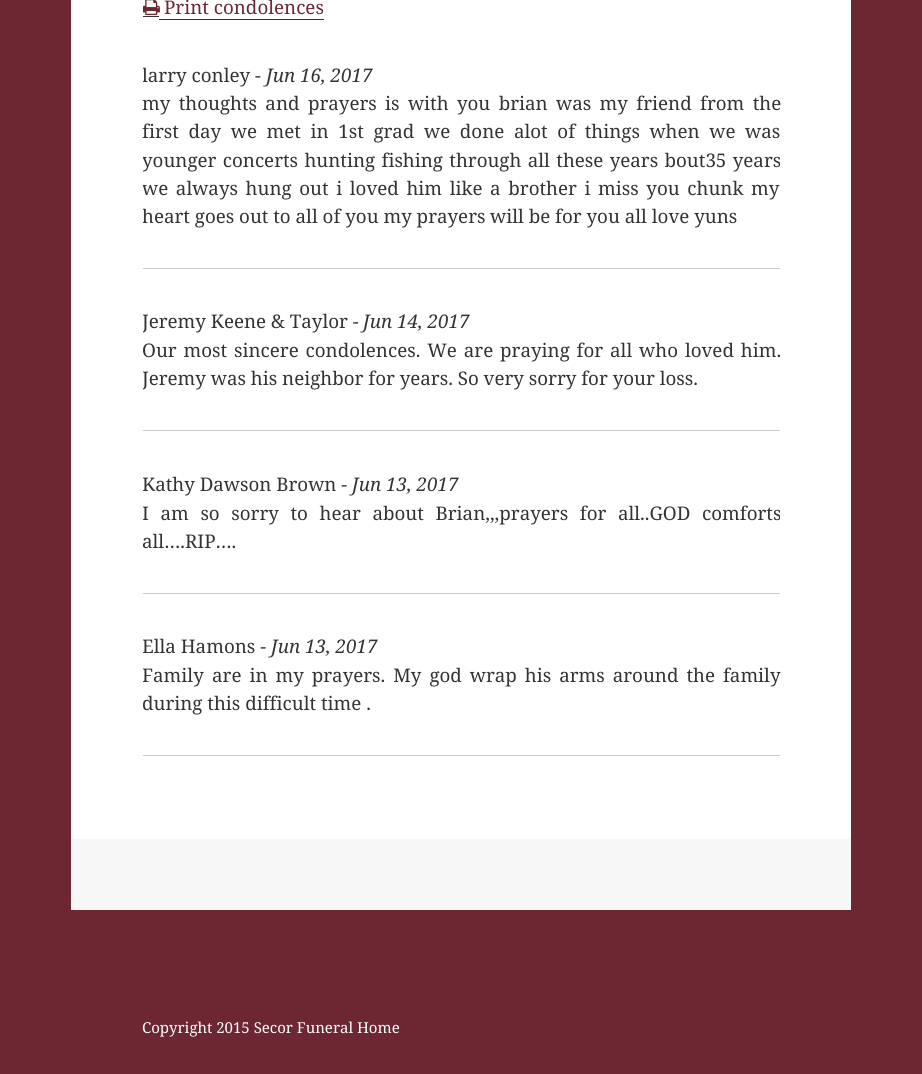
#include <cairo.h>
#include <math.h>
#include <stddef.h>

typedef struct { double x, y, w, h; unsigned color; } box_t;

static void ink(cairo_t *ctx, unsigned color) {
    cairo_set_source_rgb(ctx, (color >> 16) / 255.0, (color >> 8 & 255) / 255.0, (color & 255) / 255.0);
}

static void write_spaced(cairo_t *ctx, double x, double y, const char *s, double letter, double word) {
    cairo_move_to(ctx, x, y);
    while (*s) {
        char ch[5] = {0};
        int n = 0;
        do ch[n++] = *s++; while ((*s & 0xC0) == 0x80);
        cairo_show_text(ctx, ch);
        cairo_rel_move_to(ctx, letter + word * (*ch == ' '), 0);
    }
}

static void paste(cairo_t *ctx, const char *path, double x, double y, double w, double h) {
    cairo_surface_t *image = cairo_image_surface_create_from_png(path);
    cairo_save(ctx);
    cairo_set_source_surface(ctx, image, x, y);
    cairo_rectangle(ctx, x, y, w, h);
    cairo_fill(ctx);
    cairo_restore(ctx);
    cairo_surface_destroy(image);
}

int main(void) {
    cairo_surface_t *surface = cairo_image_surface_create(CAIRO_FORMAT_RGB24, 922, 1074);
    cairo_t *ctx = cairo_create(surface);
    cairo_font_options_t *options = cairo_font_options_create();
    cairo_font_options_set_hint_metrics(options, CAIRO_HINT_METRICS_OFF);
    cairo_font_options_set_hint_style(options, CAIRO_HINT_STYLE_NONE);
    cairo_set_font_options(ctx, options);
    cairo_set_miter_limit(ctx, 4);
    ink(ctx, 0x6C2733);
    cairo_paint(ctx);
    {
        static const box_t items[] = {
            {71, 0, 780, 839, 0xFFFFFF},
            {143, 16, 16, 1, 0x333333},
            {159, 19, 165, 1, 0x333333},
        };
        for (size_t i = 0; i < sizeof items / sizeof *items; i++) {
            ink(ctx, items[i].color);
            cairo_rectangle(ctx, items[i].x, items[i].y, items[i].w, items[i].h);
            cairo_fill(ctx);
        }
    }
    paste(ctx, "media/1.png", 143, 0, 17, 16);
    cairo_select_font_face(ctx, "Noto Serif", CAIRO_FONT_SLANT_NORMAL, CAIRO_FONT_WEIGHT_NORMAL);
    cairo_set_font_size(ctx, 18.75);
    ink(ctx, 0x6C2733);
    cairo_move_to(ctx, 164, 14);
    cairo_show_text(ctx, "Print condolences");
    ink(ctx, 0xCCCCCC);
    cairo_rectangle(ctx, 143, 268, 637, 1);
    cairo_fill(ctx);
    cairo_save(ctx);
    cairo_rectangle(ctx, 143, 0, 637, 769);
    cairo_clip(ctx);
    ink(ctx, 0x333333);
    cairo_move_to(ctx, 142, 82);
    cairo_show_text(ctx, "larry conley -");
    cairo_restore(ctx);
    cairo_select_font_face(ctx, "Noto Serif", CAIRO_FONT_SLANT_ITALIC, CAIRO_FONT_WEIGHT_NORMAL);
    ink(ctx, 0x333333);
    cairo_move_to(ctx, 266, 82);
    cairo_show_text(ctx, "Jun 16, 2017");
    cairo_select_font_face(ctx, "Noto Serif", CAIRO_FONT_SLANT_NORMAL, CAIRO_FONT_WEIGHT_NORMAL);
    write_spaced(ctx, 142, 110, "my thoughts and prayers is with you brian was my friend from the", 0, 3.5);
    write_spaced(ctx, 142, 138, "first day we met in 1st grad we done alot of things when we was", 0, 4.75);
    cairo_save(ctx);
    cairo_rectangle(ctx, 143, 0, 637, 769);
    cairo_clip(ctx);
    write_spaced(ctx, 142, 167, "younger concerts hunting fishing through all these years bout35 years", 0, 1.5);
    write_spaced(ctx, 142, 195, "we always hung out i loved him like a brother i miss you chunk my", 0, 2.75);
    cairo_move_to(ctx, 142, 223);
    cairo_show_text(ctx, "heart goes out to all of you my prayers");
    cairo_restore(ctx);
    cairo_move_to(ctx, 490, 223);
    cairo_show_text(ctx, "will be for you all love yuns");
    ink(ctx, 0xCCCCCC);
    cairo_rectangle(ctx, 143, 430, 637, 1);
    cairo_fill(ctx);
    cairo_save(ctx);
    cairo_rectangle(ctx, 143, 0, 637, 769);
    cairo_clip(ctx);
    ink(ctx, 0x333333);
    cairo_move_to(ctx, 142, 328);
    cairo_show_text(ctx, "Jeremy Keene & Taylor -");
    cairo_restore(ctx);
    cairo_select_font_face(ctx, "Noto Serif", CAIRO_FONT_SLANT_ITALIC, CAIRO_FONT_WEIGHT_NORMAL);
    ink(ctx, 0x333333);
    cairo_move_to(ctx, 363, 328);
    cairo_show_text(ctx, "Jun 14, 2017");
    cairo_select_font_face(ctx, "Noto Serif", CAIRO_FONT_SLANT_NORMAL, CAIRO_FONT_WEIGHT_NORMAL);
    write_spaced(ctx, 142, 357, "Our most sincere condolences. We are praying for all who loved him.", 0, 2);
    cairo_save(ctx);
    cairo_rectangle(ctx, 143, 0, 637, 769);
    cairo_clip(ctx);
    cairo_move_to(ctx, 142, 385);
    cairo_show_text(ctx, "Jeremy was his neighbor for years. So very sorry for your loss.");
    cairo_restore(ctx);
    ink(ctx, 0xCCCCCC);
    cairo_rectangle(ctx, 143, 593, 637, 1);
    cairo_fill(ctx);
    cairo_save(ctx);
    cairo_rectangle(ctx, 143, 0, 637, 769);
    cairo_clip(ctx);
    ink(ctx, 0x333333);
    cairo_move_to(ctx, 142, 491);
    cairo_show_text(ctx, "Kathy Dawson Brown -");
    cairo_restore(ctx);
    cairo_select_font_face(ctx, "Noto Serif", CAIRO_FONT_SLANT_ITALIC, CAIRO_FONT_WEIGHT_NORMAL);
    ink(ctx, 0x333333);
    cairo_move_to(ctx, 352, 491);
    cairo_show_text(ctx, "Jun 13, 2017");
    cairo_save(ctx);
    cairo_rectangle(ctx, 143, 0, 637, 769);
    cairo_clip(ctx);
    cairo_select_font_face(ctx, "Noto Serif", CAIRO_FONT_SLANT_NORMAL, CAIRO_FONT_WEIGHT_NORMAL);
    write_spaced(ctx, 142, 520, "I am so sorry to hear about Brian,,,prayers for all..GOD comforts", 0, 6.75);
    cairo_restore(ctx);
    cairo_select_font_face(ctx, "Noto Serif", CAIRO_FONT_SLANT_NORMAL, CAIRO_FONT_WEIGHT_NORMAL);
    cairo_move_to(ctx, 142, 548);
    cairo_show_text(ctx, "all….RIP….");
    ink(ctx, 0xCCCCCC);
    cairo_rectangle(ctx, 143, 755, 637, 1);
    cairo_fill(ctx);
    cairo_save(ctx);
    cairo_rectangle(ctx, 143, 0, 637, 769);
    cairo_clip(ctx);
    ink(ctx, 0x333333);
    cairo_move_to(ctx, 142, 653);
    cairo_show_text(ctx, "Ella Hamons -");
    cairo_restore(ctx);
    cairo_select_font_face(ctx, "Noto Serif", CAIRO_FONT_SLANT_ITALIC, CAIRO_FONT_WEIGHT_NORMAL);
    ink(ctx, 0x333333);
    cairo_move_to(ctx, 271, 653);
    cairo_show_text(ctx, "Jun 13, 2017");
    cairo_save(ctx);
    cairo_rectangle(ctx, 143, 0, 637, 769);
    cairo_clip(ctx);
    cairo_select_font_face(ctx, "Noto Serif", CAIRO_FONT_SLANT_NORMAL, CAIRO_FONT_WEIGHT_NORMAL);
    cairo_move_to(ctx, 142, 682);
    cairo_show_text(ctx, "Family");
    cairo_restore(ctx);
    cairo_select_font_face(ctx, "Noto Serif", CAIRO_FONT_SLANT_NORMAL, CAIRO_FONT_WEIGHT_NORMAL);
    write_spaced(ctx, 212, 682, "are in my prayers. My god wrap his arms around the family", 0, 3.1);
    cairo_move_to(ctx, 142, 710);
    cairo_show_text(ctx, "during this difficult time .");
    ink(ctx, 0xF7F7F7);
    cairo_rectangle(ctx, 71, 839, 780, 71);
    cairo_fill(ctx);
    cairo_set_font_size(ctx, 15);
    ink(ctx, 0xFFFFFF);
    cairo_move_to(ctx, 142, 1033);
    cairo_show_text(ctx, "Copyright 2015 Secor Funeral Home");
    cairo_surface_write_to_png(surface, "image.png");
    cairo_font_options_destroy(options);
    cairo_destroy(ctx);
    cairo_surface_destroy(surface);
    return 0;
}
